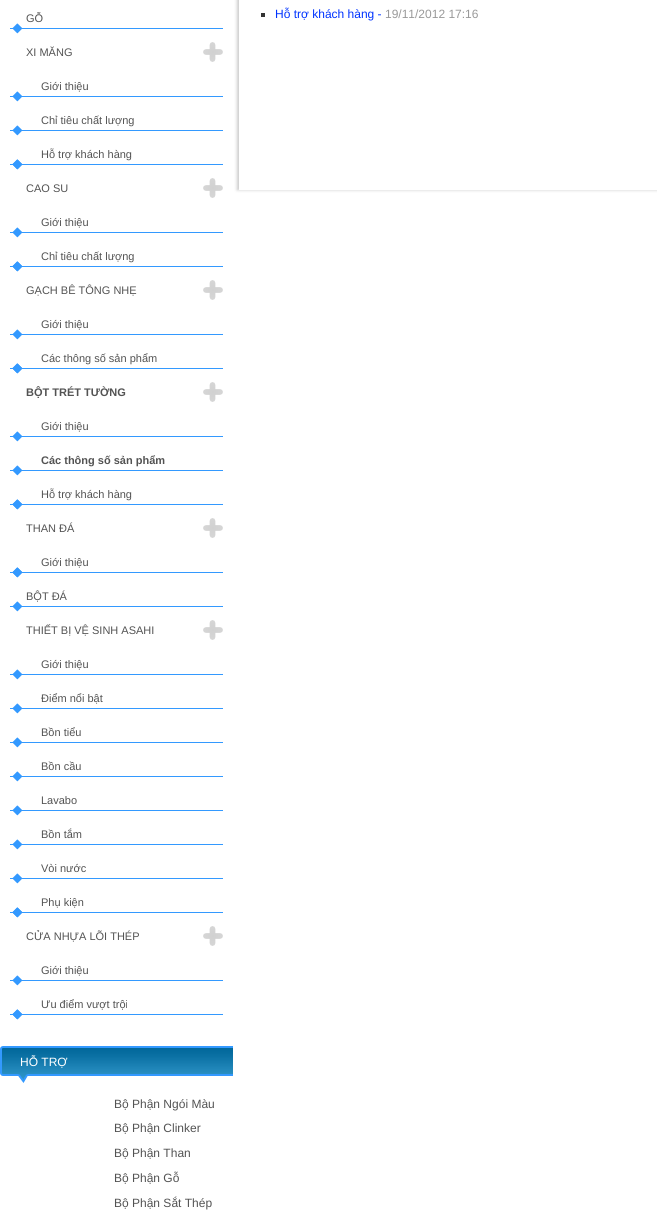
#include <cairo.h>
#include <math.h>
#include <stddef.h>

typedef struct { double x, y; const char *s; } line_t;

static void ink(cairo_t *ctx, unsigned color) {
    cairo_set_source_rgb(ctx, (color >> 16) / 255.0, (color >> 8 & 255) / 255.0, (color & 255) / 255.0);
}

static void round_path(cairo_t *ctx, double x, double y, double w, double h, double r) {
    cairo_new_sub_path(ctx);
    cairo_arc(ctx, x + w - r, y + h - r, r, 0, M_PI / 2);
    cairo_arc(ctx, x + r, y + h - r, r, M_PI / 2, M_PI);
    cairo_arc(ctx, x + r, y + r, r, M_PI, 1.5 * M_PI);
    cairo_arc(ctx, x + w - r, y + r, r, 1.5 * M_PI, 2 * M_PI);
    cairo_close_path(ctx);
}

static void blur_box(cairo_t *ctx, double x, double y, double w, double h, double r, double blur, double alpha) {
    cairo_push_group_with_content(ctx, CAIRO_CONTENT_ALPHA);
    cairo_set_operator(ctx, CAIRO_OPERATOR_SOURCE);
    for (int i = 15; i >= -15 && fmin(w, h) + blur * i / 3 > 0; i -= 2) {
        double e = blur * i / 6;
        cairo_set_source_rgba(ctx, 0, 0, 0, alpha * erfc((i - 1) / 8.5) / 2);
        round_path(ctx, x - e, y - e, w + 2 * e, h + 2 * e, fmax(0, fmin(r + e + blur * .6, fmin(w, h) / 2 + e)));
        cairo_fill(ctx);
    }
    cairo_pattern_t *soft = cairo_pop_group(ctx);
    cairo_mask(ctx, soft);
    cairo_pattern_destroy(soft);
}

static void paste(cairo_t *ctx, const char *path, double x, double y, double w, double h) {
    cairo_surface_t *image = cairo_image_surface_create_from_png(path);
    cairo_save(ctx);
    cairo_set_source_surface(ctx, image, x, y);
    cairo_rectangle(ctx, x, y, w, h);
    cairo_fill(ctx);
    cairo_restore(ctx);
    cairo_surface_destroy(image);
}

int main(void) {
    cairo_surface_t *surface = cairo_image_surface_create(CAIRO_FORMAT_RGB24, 657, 1232);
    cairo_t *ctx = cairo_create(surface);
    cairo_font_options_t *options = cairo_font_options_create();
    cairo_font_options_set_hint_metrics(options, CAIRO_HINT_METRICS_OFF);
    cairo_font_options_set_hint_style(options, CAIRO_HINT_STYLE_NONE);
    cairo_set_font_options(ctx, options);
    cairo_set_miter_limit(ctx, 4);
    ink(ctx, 0xFFFFFF);
    cairo_paint(ctx);
    paste(ctx, "media/1.png", 10, 23, 213, 11);
    cairo_select_font_face(ctx, "Liberation Sans", CAIRO_FONT_SLANT_NORMAL, CAIRO_FONT_WEIGHT_NORMAL);
    cairo_set_font_size(ctx, 11);
    ink(ctx, 0x535353);
    cairo_move_to(ctx, 26, 22);
    cairo_show_text(ctx, "GỖ");
    paste(ctx, "media/1.png", 10, 159, 213, 11);
    paste(ctx, "media/2.png", 203, 42, 20, 20);
    cairo_move_to(ctx, 26, 56);
    cairo_show_text(ctx, "XI MĂNG");
    paste(ctx, "media/1.png", 10, 91, 213, 11);
    cairo_move_to(ctx, 41, 90);
    cairo_show_text(ctx, "Giới thiệu");
    paste(ctx, "media/1.png", 10, 125, 213, 11);
    cairo_move_to(ctx, 41, 124);
    cairo_show_text(ctx, "Chỉ tiêu chất lượng");
    paste(ctx, "media/3.png", 12, 159, 10, 11);
    cairo_move_to(ctx, 41, 158);
    cairo_show_text(ctx, "Hỗ trợ khách hàng");
    paste(ctx, "media/1.png", 10, 261, 213, 11);
    paste(ctx, "media/2.png", 203, 178, 20, 20);
    cairo_move_to(ctx, 26, 192);
    cairo_show_text(ctx, "CAO SU");
    paste(ctx, "media/1.png", 10, 227, 213, 11);
    cairo_move_to(ctx, 41, 226);
    cairo_show_text(ctx, "Giới thiệu");
    paste(ctx, "media/3.png", 12, 261, 10, 11);
    cairo_move_to(ctx, 41, 260);
    cairo_show_text(ctx, "Chỉ tiêu chất lượng");
    paste(ctx, "media/1.png", 10, 363, 213, 11);
    paste(ctx, "media/2.png", 203, 280, 20, 20);
    cairo_move_to(ctx, 26, 294);
    cairo_show_text(ctx, "GẠCH BÊ TÔNG NHẸ");
    paste(ctx, "media/1.png", 10, 329, 213, 11);
    cairo_move_to(ctx, 41, 328);
    cairo_show_text(ctx, "Giới thiệu");
    paste(ctx, "media/3.png", 12, 363, 10, 11);
    cairo_move_to(ctx, 41, 362);
    cairo_show_text(ctx, "Các thông số sản phẩm");
    paste(ctx, "media/1.png", 10, 499, 213, 11);
    paste(ctx, "media/2.png", 203, 382, 20, 20);
    cairo_select_font_face(ctx, "Liberation Sans", CAIRO_FONT_SLANT_NORMAL, CAIRO_FONT_WEIGHT_BOLD);
    cairo_move_to(ctx, 26, 396);
    cairo_show_text(ctx, "BỘT TRÉT TƯỜNG");
    paste(ctx, "media/1.png", 10, 431, 213, 11);
    cairo_select_font_face(ctx, "Liberation Sans", CAIRO_FONT_SLANT_NORMAL, CAIRO_FONT_WEIGHT_NORMAL);
    cairo_move_to(ctx, 41, 430);
    cairo_show_text(ctx, "Giới thiệu");
    paste(ctx, "media/1.png", 10, 465, 213, 11);
    cairo_select_font_face(ctx, "Liberation Sans", CAIRO_FONT_SLANT_NORMAL, CAIRO_FONT_WEIGHT_BOLD);
    cairo_move_to(ctx, 41, 464);
    cairo_show_text(ctx, "Các thông số sản phẩm");
    paste(ctx, "media/3.png", 12, 499, 10, 11);
    cairo_select_font_face(ctx, "Liberation Sans", CAIRO_FONT_SLANT_NORMAL, CAIRO_FONT_WEIGHT_NORMAL);
    cairo_move_to(ctx, 41, 498);
    cairo_show_text(ctx, "Hỗ trợ khách hàng");
    paste(ctx, "media/1.png", 10, 567, 213, 11);
    paste(ctx, "media/2.png", 203, 518, 20, 20);
    cairo_move_to(ctx, 26, 532);
    cairo_show_text(ctx, "THAN ĐÁ");
    paste(ctx, "media/3.png", 12, 567, 10, 11);
    cairo_move_to(ctx, 41, 566);
    cairo_show_text(ctx, "Giới thiệu");
    paste(ctx, "media/1.png", 10, 601, 213, 11);
    cairo_move_to(ctx, 26, 600);
    cairo_show_text(ctx, "BỘT ĐÁ");
    paste(ctx, "media/1.png", 10, 907, 213, 11);
    paste(ctx, "media/2.png", 203, 620, 20, 20);
    cairo_move_to(ctx, 26, 634);
    cairo_show_text(ctx, "THIẾT BỊ VỆ SINH ASAHI");
    paste(ctx, "media/1.png", 10, 669, 213, 11);
    cairo_move_to(ctx, 41, 668);
    cairo_show_text(ctx, "Giới thiệu");
    paste(ctx, "media/1.png", 10, 703, 213, 11);
    cairo_move_to(ctx, 41, 702);
    cairo_show_text(ctx, "Điểm nổi bật");
    paste(ctx, "media/1.png", 10, 737, 213, 11);
    cairo_move_to(ctx, 41, 736);
    cairo_show_text(ctx, "Bồn tiểu");
    paste(ctx, "media/1.png", 10, 771, 213, 11);
    cairo_move_to(ctx, 41, 770);
    cairo_show_text(ctx, "Bồn cầu");
    paste(ctx, "media/1.png", 10, 805, 213, 11);
    cairo_move_to(ctx, 41, 804);
    cairo_show_text(ctx, "Lavabo");
    paste(ctx, "media/1.png", 10, 839, 213, 11);
    cairo_move_to(ctx, 41, 838);
    cairo_show_text(ctx, "Bồn tắm");
    paste(ctx, "media/1.png", 10, 873, 213, 11);
    cairo_move_to(ctx, 41, 872);
    cairo_show_text(ctx, "Vòi nước");
    paste(ctx, "media/3.png", 12, 907, 10, 11);
    cairo_move_to(ctx, 41, 906);
    cairo_show_text(ctx, "Phụ kiện");
    paste(ctx, "media/1.png", 10, 1009, 213, 11);
    paste(ctx, "media/2.png", 203, 926, 20, 20);
    cairo_move_to(ctx, 26, 940);
    cairo_show_text(ctx, "CỬA NHỰA LÕI THÉP");
    paste(ctx, "media/1.png", 10, 975, 213, 11);
    cairo_move_to(ctx, 41, 974);
    cairo_show_text(ctx, "Giới thiệu");
    paste(ctx, "media/3.png", 12, 1009, 10, 11);
    cairo_move_to(ctx, 41, 1008);
    cairo_show_text(ctx, "Ưu điểm vượt trội");
    paste(ctx, "media/4.png", 0, 1046, 233, 37);
    cairo_set_font_size(ctx, 12);
    ink(ctx, 0xFFFFFF);
    cairo_move_to(ctx, 20, 1066);
    cairo_show_text(ctx, "HỖ TRỢ");
    ink(ctx, 0x535353);
    {
        static const line_t items[] = {
            {114, 1108, "Bộ Phận Ngói Màu"},
            {114, 1132, "Bộ Phận Clinker"},
            {114, 1157, "Bộ Phận Than"},
            {114, 1182, "Bộ Phận Gỗ"},
            {114, 1207, "Bộ Phận Sắt Thép"},
        };
        for (size_t i = 0; i < sizeof items / sizeof *items; i++) {
            cairo_move_to(ctx, items[i].x, items[i].y);
            cairo_show_text(ctx, items[i].s);
        }
    }
    cairo_save(ctx);
    cairo_set_fill_rule(ctx, CAIRO_FILL_RULE_EVEN_ODD);
    cairo_new_path(ctx);
    cairo_move_to(ctx, 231, 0);
    cairo_line_to(ctx, 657, 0);
    cairo_line_to(ctx, 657, 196);
    cairo_line_to(ctx, 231, 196);
    cairo_close_path(ctx);
    cairo_move_to(ctx, 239, -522);
    cairo_line_to(ctx, 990, -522);
    cairo_line_to(ctx, 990, 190);
    cairo_line_to(ctx, 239, 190);
    cairo_close_path(ctx);
    cairo_clip(ctx);
    ink(ctx, 0xCCCCCC);
    blur_box(ctx, 237, -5, 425, 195, 0, 1.5, 1);
    cairo_restore(ctx);
    ink(ctx, 0x333333);
    cairo_rectangle(ctx, 261, 13, 4, 4);
    cairo_fill(ctx);
    ink(ctx, 0x0033FF);
    cairo_move_to(ctx, 275, 18);
    cairo_show_text(ctx, "Hỗ trợ khách hàng -");
    ink(ctx, 0x999999);
    cairo_move_to(ctx, 385, 18);
    cairo_show_text(ctx, "19/11/2012 17:16");
    cairo_surface_write_to_png(surface, "image.png");
    cairo_font_options_destroy(options);
    cairo_destroy(ctx);
    cairo_surface_destroy(surface);
    return 0;
}
